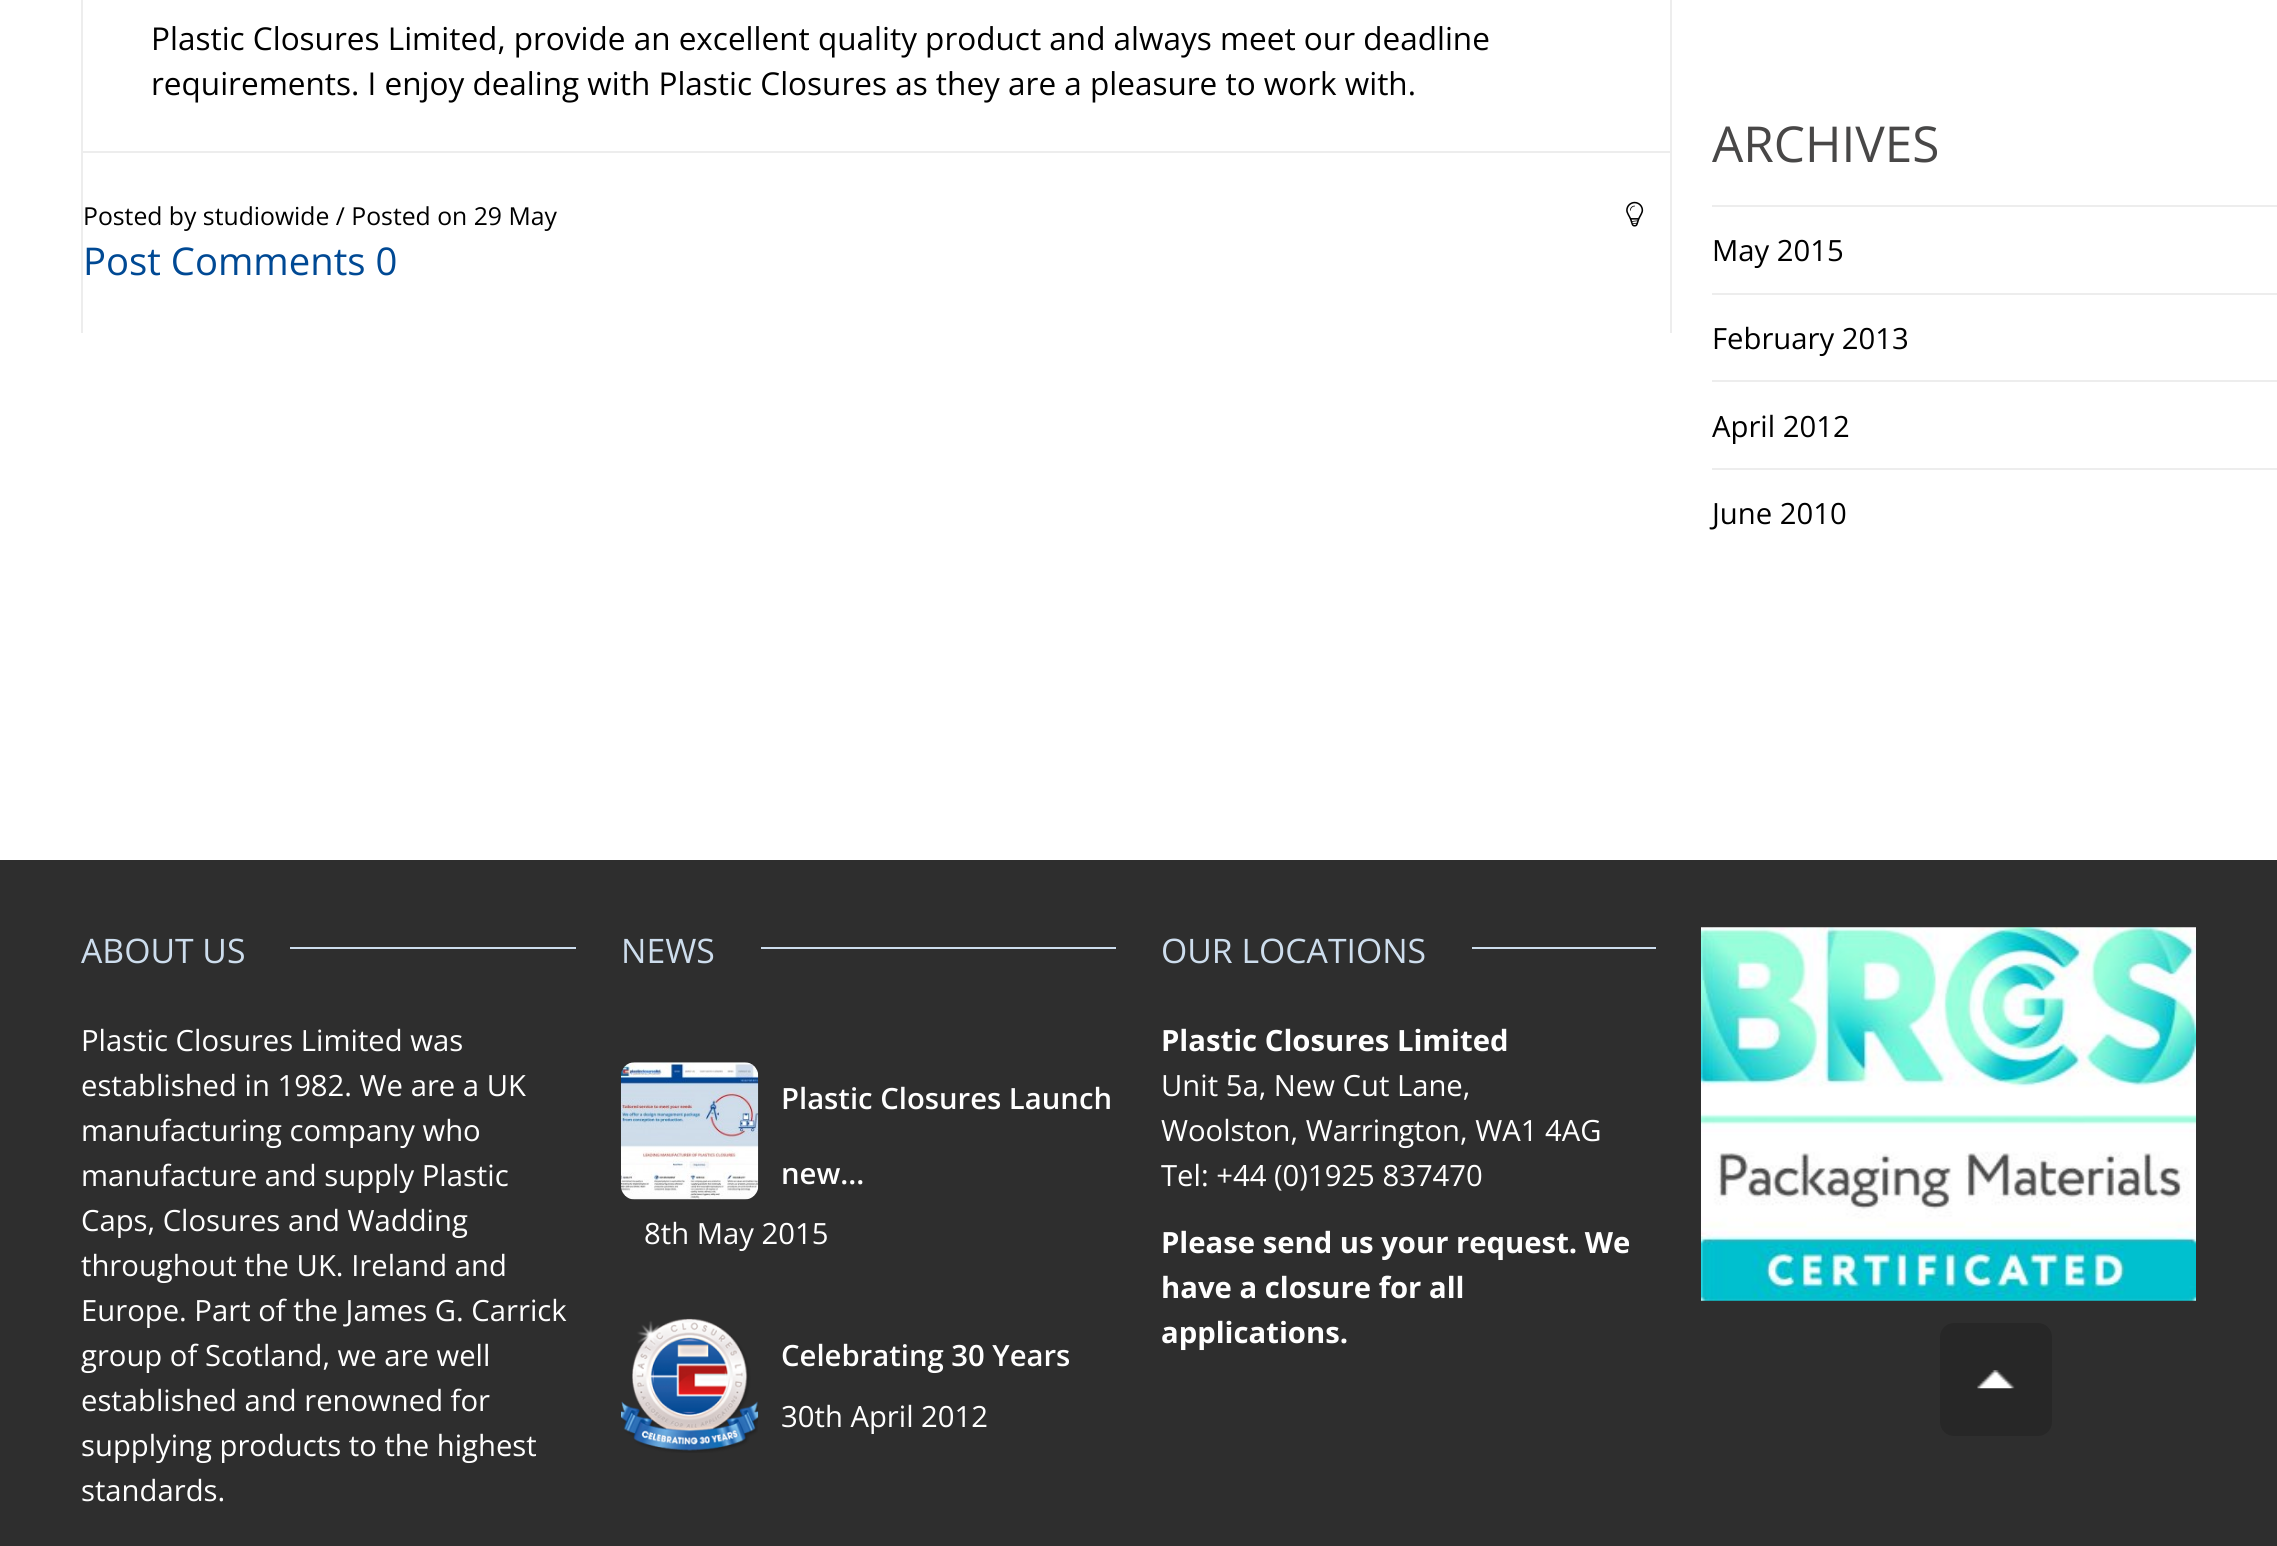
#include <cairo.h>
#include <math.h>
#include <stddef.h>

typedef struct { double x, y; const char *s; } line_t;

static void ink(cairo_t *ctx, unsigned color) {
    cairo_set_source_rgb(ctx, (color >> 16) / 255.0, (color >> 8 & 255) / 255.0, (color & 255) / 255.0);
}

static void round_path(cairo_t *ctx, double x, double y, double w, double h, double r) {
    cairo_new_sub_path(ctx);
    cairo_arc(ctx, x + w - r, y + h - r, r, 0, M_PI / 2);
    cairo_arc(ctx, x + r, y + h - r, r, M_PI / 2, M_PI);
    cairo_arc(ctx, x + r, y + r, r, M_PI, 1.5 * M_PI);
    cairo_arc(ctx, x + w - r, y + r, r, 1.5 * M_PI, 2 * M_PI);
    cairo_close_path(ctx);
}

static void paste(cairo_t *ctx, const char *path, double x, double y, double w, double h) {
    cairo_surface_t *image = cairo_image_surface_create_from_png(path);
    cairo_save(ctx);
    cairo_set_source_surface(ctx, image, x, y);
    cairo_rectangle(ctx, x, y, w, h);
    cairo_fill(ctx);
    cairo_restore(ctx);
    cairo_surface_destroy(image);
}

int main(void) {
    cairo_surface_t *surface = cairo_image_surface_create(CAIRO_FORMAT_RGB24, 2277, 1546);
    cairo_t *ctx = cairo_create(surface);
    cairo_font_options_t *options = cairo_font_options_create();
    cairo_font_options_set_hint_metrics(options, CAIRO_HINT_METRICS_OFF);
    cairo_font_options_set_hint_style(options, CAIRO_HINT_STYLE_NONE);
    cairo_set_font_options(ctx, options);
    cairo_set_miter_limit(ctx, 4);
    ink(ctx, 0xFFFFFF);
    cairo_paint(ctx);
    ink(ctx, 0xEDEDED);
    cairo_rectangle(ctx, 1670, 0, 2, 333);
    cairo_fill(ctx);
    cairo_rectangle(ctx, 81, 0, 2, 333);
    cairo_fill(ctx);
    cairo_select_font_face(ctx, "Open Sans", CAIRO_FONT_SLANT_NORMAL, CAIRO_FONT_WEIGHT_NORMAL);
    cairo_set_font_size(ctx, 31.5);
    ink(ctx, 0x000000);
    cairo_move_to(ctx, 151, 50);
    cairo_show_text(ctx, "Plastic Closures Limited, provide an excellent quality product and always meet our deadline");
    cairo_move_to(ctx, 151, 95);
    cairo_show_text(ctx, "requirements. I enjoy dealing with Plastic Closures as they are a pleasure to work with.");
    ink(ctx, 0xEDEDED);
    cairo_rectangle(ctx, 83, 151, 1587, 2);
    cairo_fill(ctx);
    cairo_set_font_size(ctx, 24.75);
    ink(ctx, 0x000000);
    cairo_move_to(ctx, 83, 225);
    cairo_show_text(ctx, "Posted by studiowide / Posted on 29 May");
    paste(ctx, "media/1.png", 1626, 201, 18, 26);
    cairo_set_font_size(ctx, 38.25);
    ink(ctx, 0x004994);
    cairo_move_to(ctx, 83, 275);
    cairo_show_text(ctx, "Post Comments 0");
    cairo_set_font_size(ctx, 49.5);
    ink(ctx, 0x484747);
    cairo_move_to(ctx, 1712, 162);
    cairo_show_text(ctx, "ARCHIVES");
    ink(ctx, 0xEDEDED);
    cairo_rectangle(ctx, 1712, 205, 565, 2);
    cairo_fill(ctx);
    cairo_rectangle(ctx, 1712, 293, 565, 2);
    cairo_fill(ctx);
    cairo_set_font_size(ctx, 29.25);
    ink(ctx, 0x000000);
    cairo_move_to(ctx, 1712, 261);
    cairo_show_text(ctx, "May 2015");
    ink(ctx, 0xEDEDED);
    cairo_rectangle(ctx, 1712, 380, 565, 2);
    cairo_fill(ctx);
    ink(ctx, 0x000000);
    cairo_move_to(ctx, 1712, 349);
    cairo_show_text(ctx, "February 2013");
    ink(ctx, 0xEDEDED);
    cairo_rectangle(ctx, 1712, 468, 565, 2);
    cairo_fill(ctx);
    ink(ctx, 0x000000);
    cairo_move_to(ctx, 1712, 437);
    cairo_show_text(ctx, "April 2012");
    cairo_move_to(ctx, 1712, 524);
    cairo_show_text(ctx, "June 2010");
    ink(ctx, 0x2E2E2E);
    cairo_rectangle(ctx, 0, 860, 2277, 686);
    cairo_fill(ctx);
    ink(ctx, 0x272727);
    round_path(ctx, 1940, 1323, 112, 113, 14);
    cairo_fill(ctx);
    paste(ctx, "media/2.png", 1977, 1370, 38, 19);
    cairo_set_font_size(ctx, 33.75);
    ink(ctx, 0xCDDDED);
    cairo_move_to(ctx, 81, 963);
    cairo_show_text(ctx, "ABOUT US");
    cairo_rectangle(ctx, 290, 947, 286, 2);
    cairo_fill(ctx);
    cairo_set_font_size(ctx, 29.25);
    ink(ctx, 0xFFFFFF);
    {
        static const line_t items[] = {
            {81, 1051, "Plastic Closures Limited was"},
            {81, 1096, "established in 1982. We are a UK"},
            {81, 1141, "manufacturing company who"},
            {81, 1186, "manufacture and supply Plastic"},
            {81, 1231, "Caps, Closures and Wadding"},
            {81, 1276, "throughout the UK. Ireland and"},
            {81, 1321, "Europe. Part of the James G. Carrick"},
            {81, 1366, "group of Scotland, we are well"},
            {81, 1411, "established and renowned for"},
            {81, 1456, "supplying products to the highest"},
            {81, 1501, "standards."},
        };
        for (size_t i = 0; i < sizeof items / sizeof *items; i++) {
            cairo_move_to(ctx, items[i].x, items[i].y);
            cairo_show_text(ctx, items[i].s);
        }
    }
    cairo_set_font_size(ctx, 33.75);
    ink(ctx, 0xCDDDED);
    cairo_move_to(ctx, 621, 963);
    cairo_show_text(ctx, "NEWS");
    cairo_rectangle(ctx, 761, 947, 355, 2);
    cairo_fill(ctx);
    paste(ctx, "media/3.png", 621, 1062, 138, 138);
    cairo_select_font_face(ctx, "Open Sans SemiBold", CAIRO_FONT_SLANT_NORMAL, CAIRO_FONT_WEIGHT_NORMAL);
    cairo_set_font_size(ctx, 29.25);
    ink(ctx, 0xFFFFFF);
    cairo_move_to(ctx, 781, 1109);
    cairo_show_text(ctx, "Plastic Closures Launch");
    cairo_move_to(ctx, 781, 1184);
    cairo_show_text(ctx, "new...");
    cairo_select_font_face(ctx, "Open Sans", CAIRO_FONT_SLANT_NORMAL, CAIRO_FONT_WEIGHT_NORMAL);
    cairo_move_to(ctx, 644, 1244);
    cairo_show_text(ctx, "8th May 2015");
    paste(ctx, "media/4.png", 621, 1318, 138, 135);
    cairo_select_font_face(ctx, "Open Sans SemiBold", CAIRO_FONT_SLANT_NORMAL, CAIRO_FONT_WEIGHT_NORMAL);
    cairo_move_to(ctx, 781, 1366);
    cairo_show_text(ctx, "Celebrating 30 Years");
    cairo_select_font_face(ctx, "Open Sans", CAIRO_FONT_SLANT_NORMAL, CAIRO_FONT_WEIGHT_NORMAL);
    cairo_move_to(ctx, 781, 1427);
    cairo_show_text(ctx, "30th April 2012");
    cairo_set_font_size(ctx, 33.75);
    ink(ctx, 0xCDDDED);
    cairo_move_to(ctx, 1161, 963);
    cairo_show_text(ctx, "OUR LOCATIONS");
    cairo_rectangle(ctx, 1472, 947, 184, 2);
    cairo_fill(ctx);
    cairo_select_font_face(ctx, "Open Sans", CAIRO_FONT_SLANT_NORMAL, CAIRO_FONT_WEIGHT_BOLD);
    cairo_set_font_size(ctx, 29.25);
    ink(ctx, 0xFFFFFF);
    cairo_move_to(ctx, 1161, 1051);
    cairo_show_text(ctx, "Plastic Closures Limited");
    cairo_select_font_face(ctx, "Open Sans", CAIRO_FONT_SLANT_NORMAL, CAIRO_FONT_WEIGHT_NORMAL);
    {
        static const line_t items[] = {
            {1161, 1096, "Unit 5a, New Cut Lane,"},
            {1161, 1141, "Woolston, Warrington, WA1 4AG"},
            {1161, 1186, "Tel: +44 (0)1925 837470"},
        };
        for (size_t i = 0; i < sizeof items / sizeof *items; i++) {
            cairo_move_to(ctx, items[i].x, items[i].y);
            cairo_show_text(ctx, items[i].s);
        }
    }
    cairo_select_font_face(ctx, "Open Sans", CAIRO_FONT_SLANT_NORMAL, CAIRO_FONT_WEIGHT_BOLD);
    {
        static const line_t items[] = {
            {1161, 1253, "Please send us your request. We"},
            {1161, 1298, "have a closure for all"},
            {1161, 1343, "applications."},
        };
        for (size_t i = 0; i < sizeof items / sizeof *items; i++) {
            cairo_move_to(ctx, items[i].x, items[i].y);
            cairo_show_text(ctx, items[i].s);
        }
    }
    paste(ctx, "media/5.png", 1701, 927, 495, 374);
    cairo_surface_write_to_png(surface, "image.png");
    cairo_font_options_destroy(options);
    cairo_destroy(ctx);
    cairo_surface_destroy(surface);
    return 0;
}
